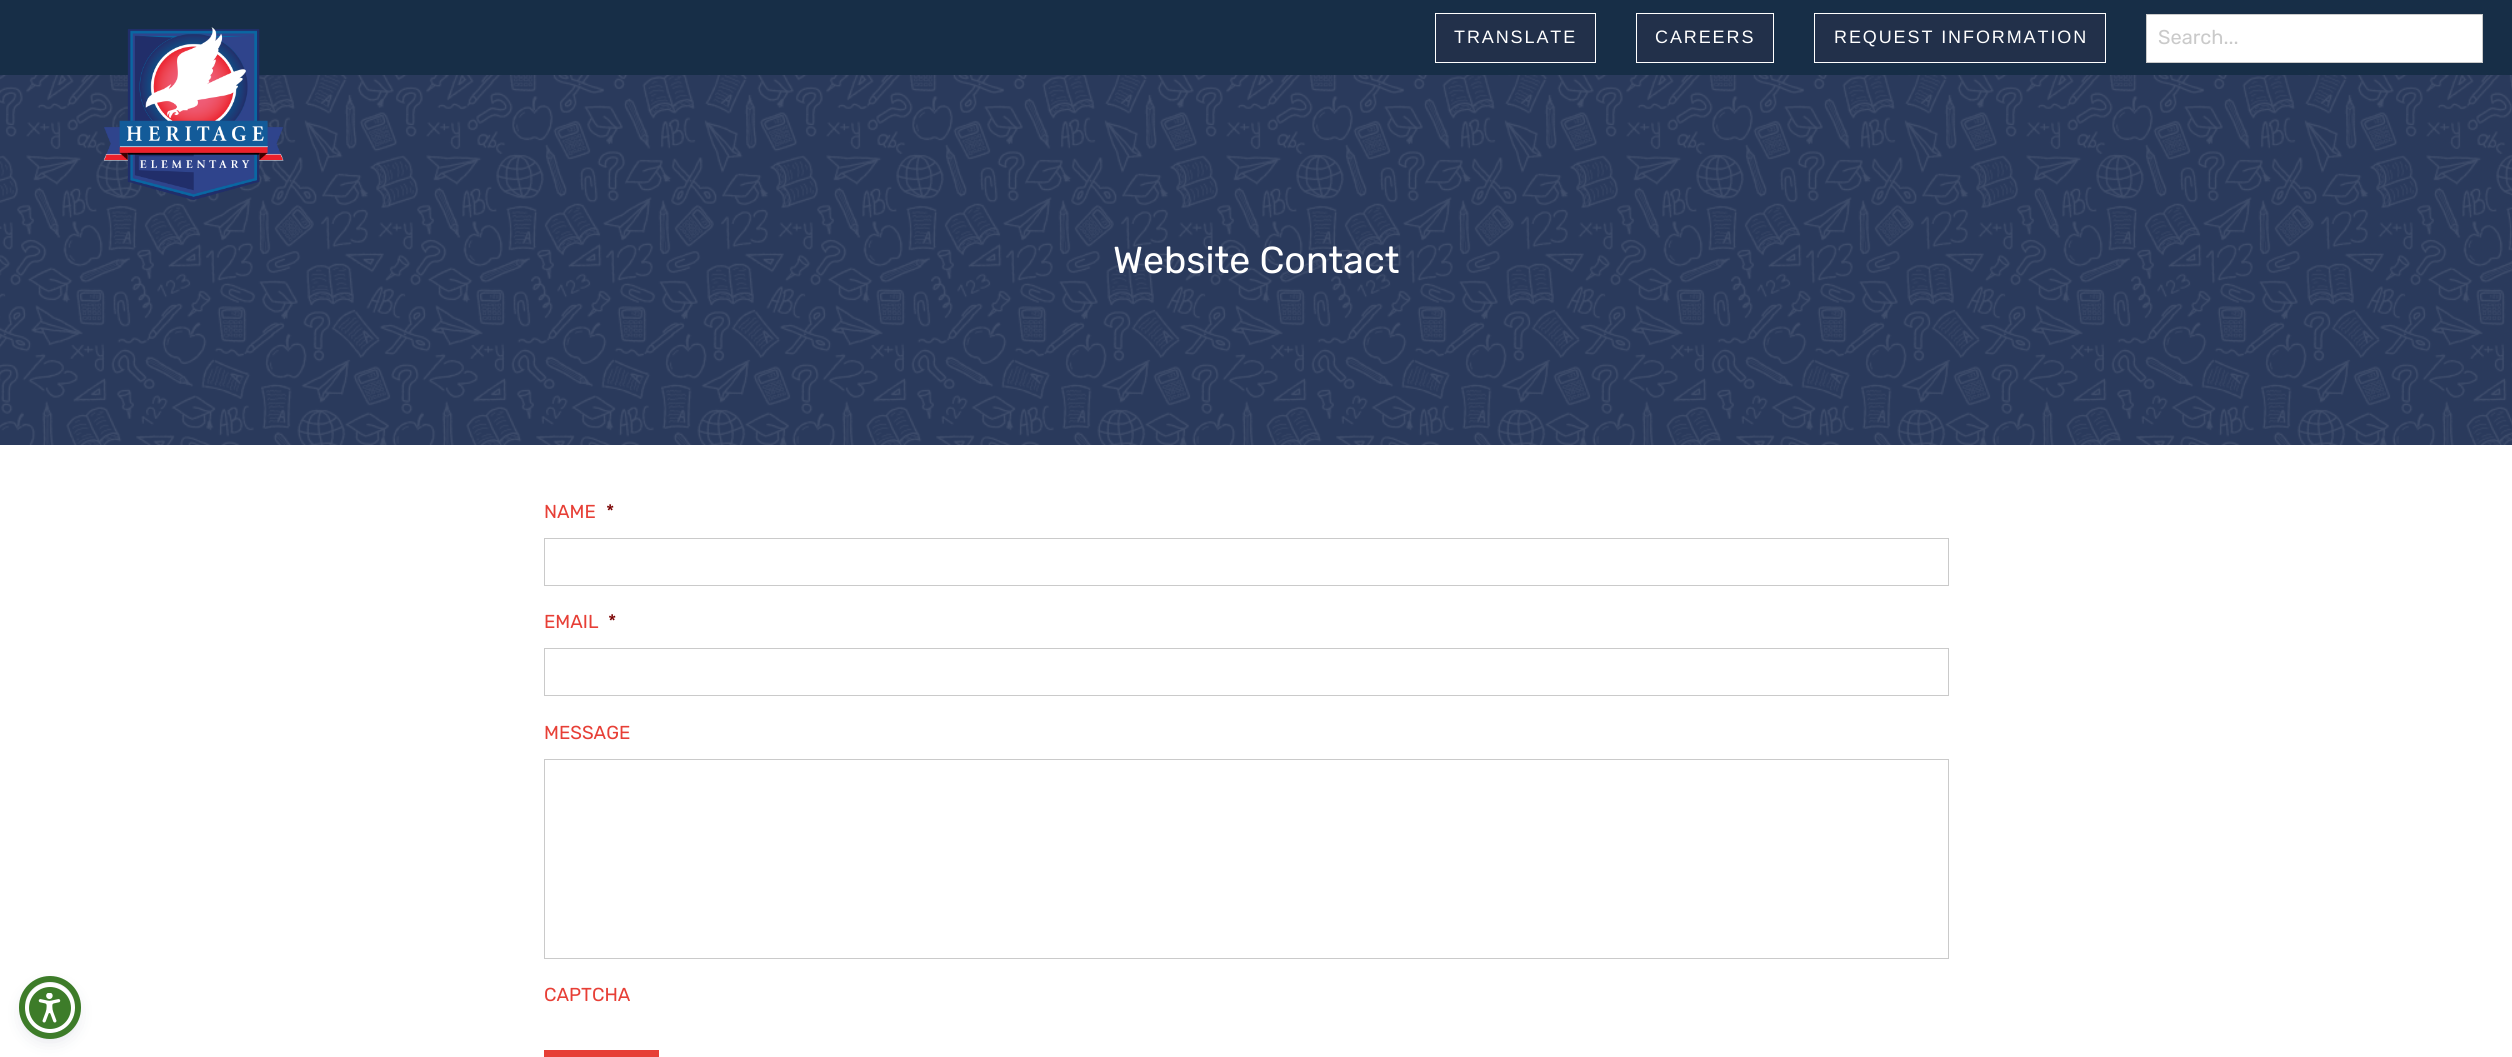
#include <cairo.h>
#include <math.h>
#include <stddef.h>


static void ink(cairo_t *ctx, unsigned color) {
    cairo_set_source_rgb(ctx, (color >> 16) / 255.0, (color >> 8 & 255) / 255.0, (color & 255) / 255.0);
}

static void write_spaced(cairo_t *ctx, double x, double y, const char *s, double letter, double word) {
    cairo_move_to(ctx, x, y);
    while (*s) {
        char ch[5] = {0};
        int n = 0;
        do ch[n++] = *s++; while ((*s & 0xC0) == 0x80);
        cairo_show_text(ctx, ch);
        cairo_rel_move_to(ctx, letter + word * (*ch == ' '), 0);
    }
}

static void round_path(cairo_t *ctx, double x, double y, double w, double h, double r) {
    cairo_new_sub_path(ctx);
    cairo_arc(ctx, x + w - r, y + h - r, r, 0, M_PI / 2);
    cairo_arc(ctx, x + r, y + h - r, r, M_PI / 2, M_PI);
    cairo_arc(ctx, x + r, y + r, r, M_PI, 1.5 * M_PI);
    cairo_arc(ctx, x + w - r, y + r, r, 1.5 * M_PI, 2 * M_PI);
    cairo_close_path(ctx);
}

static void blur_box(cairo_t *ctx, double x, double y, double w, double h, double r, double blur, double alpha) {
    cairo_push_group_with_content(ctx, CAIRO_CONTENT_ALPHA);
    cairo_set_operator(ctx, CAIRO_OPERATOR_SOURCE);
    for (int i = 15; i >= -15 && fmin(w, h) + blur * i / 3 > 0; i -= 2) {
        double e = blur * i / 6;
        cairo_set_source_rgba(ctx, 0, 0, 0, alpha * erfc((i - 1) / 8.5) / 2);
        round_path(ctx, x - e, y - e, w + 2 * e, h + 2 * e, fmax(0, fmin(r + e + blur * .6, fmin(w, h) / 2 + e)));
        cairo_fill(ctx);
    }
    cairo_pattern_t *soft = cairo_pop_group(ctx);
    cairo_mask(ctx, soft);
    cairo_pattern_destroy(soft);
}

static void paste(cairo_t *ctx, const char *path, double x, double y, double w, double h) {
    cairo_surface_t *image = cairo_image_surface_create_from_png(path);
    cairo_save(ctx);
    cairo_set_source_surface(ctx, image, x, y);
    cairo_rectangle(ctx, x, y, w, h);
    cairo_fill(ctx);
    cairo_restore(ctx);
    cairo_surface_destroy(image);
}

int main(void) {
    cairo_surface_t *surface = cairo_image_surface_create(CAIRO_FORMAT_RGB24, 2512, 1057);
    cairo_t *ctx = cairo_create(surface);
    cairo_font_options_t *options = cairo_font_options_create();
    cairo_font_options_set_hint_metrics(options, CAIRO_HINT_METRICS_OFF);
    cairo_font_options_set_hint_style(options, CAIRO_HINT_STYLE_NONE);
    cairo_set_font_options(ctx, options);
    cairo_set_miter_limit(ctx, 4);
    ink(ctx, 0xFFFFFF);
    cairo_paint(ctx);
    ink(ctx, 0x5D6494);
    blur_box(ctx, 25, 985, 50, 50, 25, 2.5, 0.2);
    ink(ctx, 0x252C61);
    blur_box(ctx, 25, 989, 50, 50, 25, 9.5, 0.15);
    ink(ctx, 0x3D7C29);
    cairo_arc(ctx, 50, 1008, 23, 0, 2 * M_PI);
    cairo_fill_preserve(ctx);
    ink(ctx, 0xFFFFFF);
    cairo_set_line_width(ctx, 4);
    cairo_stroke(ctx);
    round_path(ctx, 22, 979, 56, 57, 28);
    ink(ctx, 0x3D7C29);
    cairo_set_line_width(ctx, 6);
    cairo_stroke(ctx);
    paste(ctx, "media/1.png", 38, 993, 23, 30);
    ink(ctx, 0x172E47);
    cairo_rectangle(ctx, 0, 0, 2512, 75);
    cairo_fill(ctx);
    ink(ctx, 0x2A3A5C);
    cairo_rectangle(ctx, 0, 75, 2512, 370);
    cairo_fill(ctx);
    paste(ctx, "media/3.png", 0, 75, 2512, 370);
    paste(ctx, "media/2.png", 103, 27, 181, 173);
    ink(ctx, 0x22304A);
    cairo_rectangle(ctx, 1435.5, 13.5, 160, 49);
    cairo_fill_preserve(ctx);
    ink(ctx, 0xFFFFFF);
    cairo_set_line_width(ctx, 1);
    cairo_stroke(ctx);
    cairo_select_font_face(ctx, "Liberation Sans", CAIRO_FONT_SLANT_NORMAL, CAIRO_FONT_WEIGHT_NORMAL);
    cairo_set_font_size(ctx, 18);
    write_spaced(ctx, 1454, 43, "TRANSLATE", 1.9, 0);
    ink(ctx, 0x22304A);
    cairo_rectangle(ctx, 1636.5, 13.5, 137, 49);
    cairo_fill_preserve(ctx);
    ink(ctx, 0xFFFFFF);
    cairo_stroke(ctx);
    write_spaced(ctx, 1655, 43, "CAREERS", 1.9, 0);
    ink(ctx, 0x22304A);
    cairo_rectangle(ctx, 1814.5, 13.5, 291, 49);
    cairo_fill_preserve(ctx);
    ink(ctx, 0xFFFFFF);
    cairo_stroke(ctx);
    write_spaced(ctx, 1834, 43, "REQUEST INFORMATION", 1.9, 0);
    cairo_rectangle(ctx, 2146.5, 14.5, 336, 48);
    cairo_fill_preserve(ctx);
    ink(ctx, 0xCACACA);
    cairo_stroke(ctx);
    cairo_select_font_face(ctx, "Rubik", CAIRO_FONT_SLANT_NORMAL, CAIRO_FONT_WEIGHT_NORMAL);
    cairo_set_font_size(ctx, 20);
    cairo_move_to(ctx, 2158, 44);
    cairo_show_text(ctx, "Search...");
    cairo_set_font_size(ctx, 37.5);
    ink(ctx, 0xFFFFFF);
    cairo_move_to(ctx, 1113, 273);
    cairo_show_text(ctx, "Website Contact");
    cairo_set_font_size(ctx, 18.75);
    ink(ctx, 0xE73F36);
    cairo_move_to(ctx, 544, 518);
    cairo_show_text(ctx, "NAME");
    ink(ctx, 0x790000);
    cairo_move_to(ctx, 606, 518);
    cairo_show_text(ctx, "*");
    cairo_rectangle(ctx, 544.5, 538.5, 1404, 47);
    ink(ctx, 0xCACACA);
    cairo_stroke(ctx);
    ink(ctx, 0xE73F36);
    cairo_move_to(ctx, 544, 628);
    cairo_show_text(ctx, "EMAIL");
    ink(ctx, 0x790000);
    cairo_move_to(ctx, 608, 628);
    cairo_show_text(ctx, "*");
    cairo_rectangle(ctx, 544.5, 648.5, 1404, 47);
    ink(ctx, 0xCACACA);
    cairo_stroke(ctx);
    ink(ctx, 0xE73F36);
    cairo_move_to(ctx, 544, 739);
    cairo_show_text(ctx, "MESSAGE");
    cairo_rectangle(ctx, 544.5, 759.5, 1404, 199);
    ink(ctx, 0xCACACA);
    cairo_stroke(ctx);
    ink(ctx, 0xE73F36);
    cairo_move_to(ctx, 544, 1001);
    cairo_show_text(ctx, "CAPTCHA");
    cairo_rectangle(ctx, 544, 1050, 115, 7);
    cairo_fill(ctx);
    cairo_surface_write_to_png(surface, "image.png");
    cairo_font_options_destroy(options);
    cairo_destroy(ctx);
    cairo_surface_destroy(surface);
    return 0;
}
